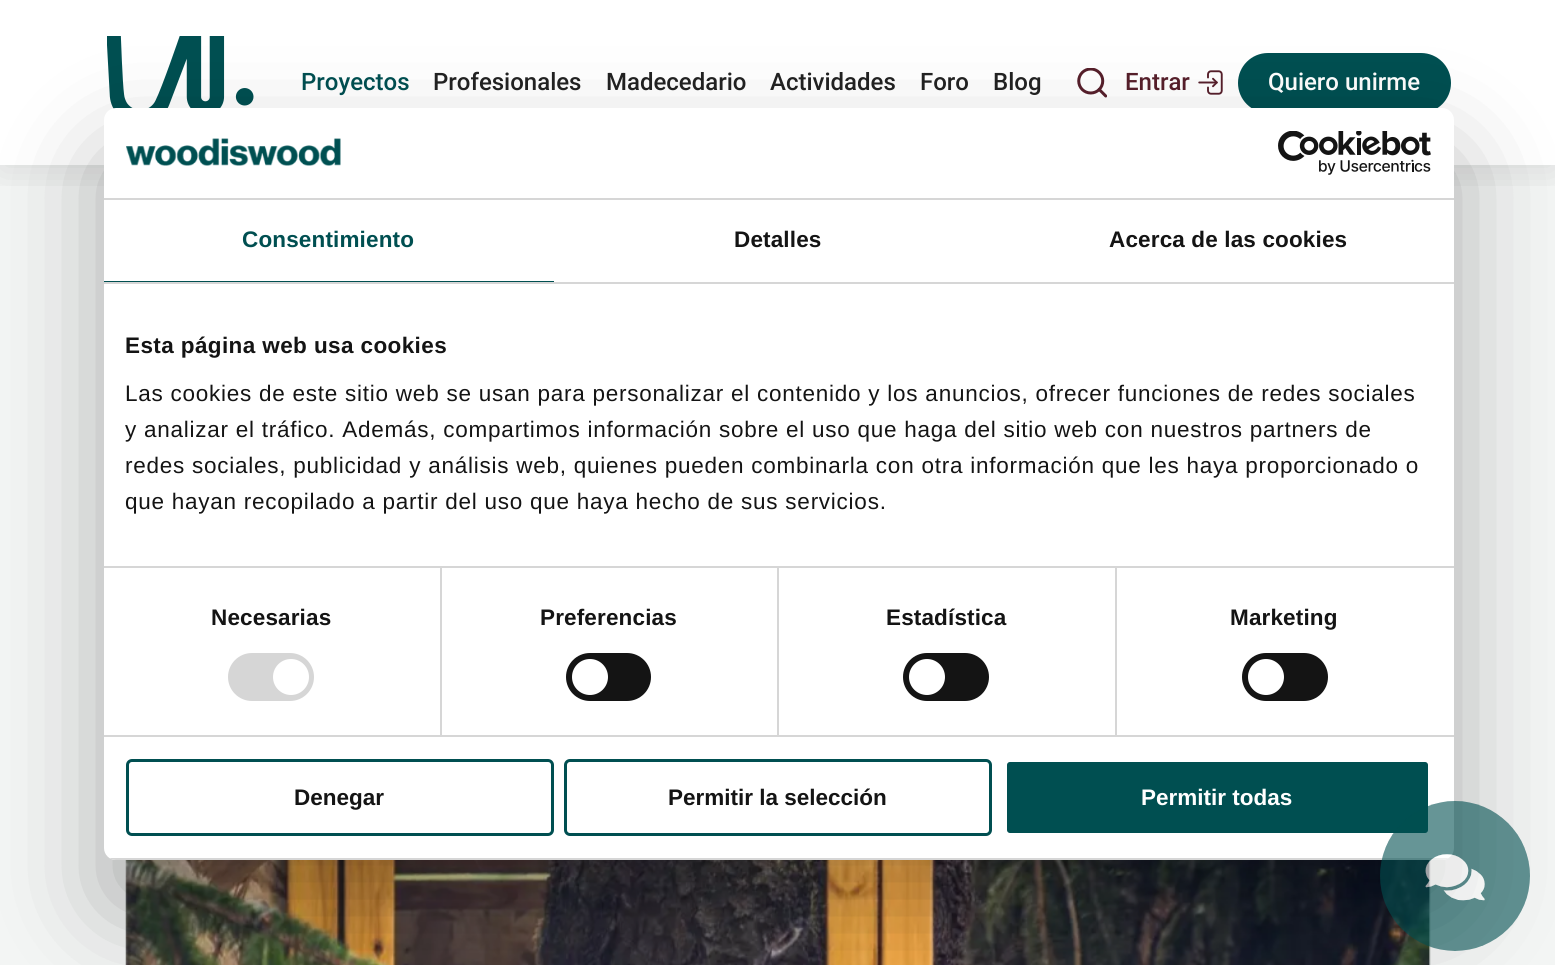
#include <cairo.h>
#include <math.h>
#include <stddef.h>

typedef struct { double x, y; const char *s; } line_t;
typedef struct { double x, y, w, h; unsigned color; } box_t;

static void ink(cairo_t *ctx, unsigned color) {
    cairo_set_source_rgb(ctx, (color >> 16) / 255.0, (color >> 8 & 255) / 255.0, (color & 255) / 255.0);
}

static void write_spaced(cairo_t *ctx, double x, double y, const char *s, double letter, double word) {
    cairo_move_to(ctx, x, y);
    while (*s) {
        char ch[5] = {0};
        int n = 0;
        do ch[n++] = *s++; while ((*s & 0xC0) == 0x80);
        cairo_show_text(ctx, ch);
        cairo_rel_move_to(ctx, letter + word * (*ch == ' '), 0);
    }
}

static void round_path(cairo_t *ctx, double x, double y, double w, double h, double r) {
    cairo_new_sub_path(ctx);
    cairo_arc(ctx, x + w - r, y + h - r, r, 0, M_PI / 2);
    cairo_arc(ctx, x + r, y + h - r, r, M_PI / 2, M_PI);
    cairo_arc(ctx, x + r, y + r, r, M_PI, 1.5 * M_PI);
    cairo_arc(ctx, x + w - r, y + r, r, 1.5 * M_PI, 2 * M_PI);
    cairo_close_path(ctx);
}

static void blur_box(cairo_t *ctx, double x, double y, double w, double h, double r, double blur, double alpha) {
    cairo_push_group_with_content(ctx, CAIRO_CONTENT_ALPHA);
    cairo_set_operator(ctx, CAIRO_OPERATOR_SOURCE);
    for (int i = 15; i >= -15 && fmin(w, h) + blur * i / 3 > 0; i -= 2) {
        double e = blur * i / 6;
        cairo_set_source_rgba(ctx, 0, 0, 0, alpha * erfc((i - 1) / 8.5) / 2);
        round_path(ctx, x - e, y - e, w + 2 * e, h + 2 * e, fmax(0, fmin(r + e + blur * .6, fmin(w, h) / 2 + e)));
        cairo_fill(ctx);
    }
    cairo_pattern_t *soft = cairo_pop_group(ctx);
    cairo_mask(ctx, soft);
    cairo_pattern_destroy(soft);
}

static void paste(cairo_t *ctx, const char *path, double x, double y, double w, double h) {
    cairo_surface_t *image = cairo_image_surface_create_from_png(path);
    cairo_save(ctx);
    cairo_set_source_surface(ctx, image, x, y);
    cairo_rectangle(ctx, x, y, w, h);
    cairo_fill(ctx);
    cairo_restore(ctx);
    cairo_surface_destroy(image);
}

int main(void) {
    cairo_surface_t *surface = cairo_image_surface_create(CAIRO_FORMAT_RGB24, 1555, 965);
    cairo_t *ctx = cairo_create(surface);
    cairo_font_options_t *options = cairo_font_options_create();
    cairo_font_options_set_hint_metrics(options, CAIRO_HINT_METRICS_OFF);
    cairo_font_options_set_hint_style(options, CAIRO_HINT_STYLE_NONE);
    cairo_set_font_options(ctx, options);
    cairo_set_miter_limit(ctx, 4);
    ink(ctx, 0xFFFFFF);
    cairo_paint(ctx);
    ink(ctx, 0xF3F5F4);
    cairo_rectangle(ctx, 0, 165, 1555, 800);
    cairo_fill(ctx);
    cairo_save(ctx);
    cairo_rectangle(ctx, 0, 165, 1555, 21);
    cairo_clip(ctx);
    ink(ctx, 0x000000);
    blur_box(ctx, 0, 6, 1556, 165, 0, 18, 0.1);
    cairo_restore(ctx);
    paste(ctx, "media/1.png", 107, 36, 147, 73);
    cairo_select_font_face(ctx, "Roboto Medium", CAIRO_FONT_SLANT_NORMAL, CAIRO_FONT_WEIGHT_NORMAL);
    cairo_set_font_size(ctx, 24);
    ink(ctx, 0x004F51);
    cairo_move_to(ctx, 301, 90);
    cairo_show_text(ctx, "Proyectos");
    ink(ctx, 0x222222);
    {
        static const line_t items[] = {
            {433, 90, "Profesionales"},
            {606, 90, "Madecedario"},
            {770, 90, "Actividades"},
            {920, 90, "Foro"},
            {993, 90, "Blog"},
        };
        for (size_t i = 0; i < sizeof items / sizeof *items; i++) {
            cairo_move_to(ctx, items[i].x, items[i].y);
            cairo_show_text(ctx, items[i].s);
        }
    }
    paste(ctx, "media/2.png", 1077, 68, 30, 30);
    ink(ctx, 0x561F2B);
    cairo_move_to(ctx, 1125, 90);
    cairo_show_text(ctx, "Entrar");
    paste(ctx, "media/3.png", 1198, 70, 25, 25);
    ink(ctx, 0x004F51);
    round_path(ctx, 1238, 53, 213, 60, 30);
    cairo_fill(ctx);
    ink(ctx, 0xFFFFFF);
    cairo_move_to(ctx, 1268, 90);
    cairo_show_text(ctx, "Quiero unirme");
    paste(ctx, "media/4.png", 125, 860, 1306, 105);
    ink(ctx, 0x000000);
    blur_box(ctx, 104, 156, 1350, 752, 12, 51, 0.3);
    ink(ctx, 0xFFFFFF);
    round_path(ctx, 104, 108, 1350, 752, 12);
    cairo_fill(ctx);
    ink(ctx, 0xD6D6D6);
    cairo_rectangle(ctx, 104, 198, 1350, 2);
    cairo_fill(ctx);
    paste(ctx, "media/5.png", 126, 138, 215, 28);
    paste(ctx, "media/6.png", 1278, 131, 153, 44);
    cairo_rectangle(ctx, 104, 282, 1350, 2);
    cairo_fill(ctx);
    ink(ctx, 0x004F51);
    cairo_rectangle(ctx, 104, 281, 450, 1);
    cairo_fill(ctx);
    cairo_select_font_face(ctx, "Liberation Sans", CAIRO_FONT_SLANT_NORMAL, CAIRO_FONT_WEIGHT_BOLD);
    cairo_set_font_size(ctx, 22.5);
    write_spaced(ctx, 242, 247, "Consentimiento", 0.15, 0);
    ink(ctx, 0x141414);
    write_spaced(ctx, 734, 247, "Detalles", 0.15, 0);
    write_spaced(ctx, 1109, 247, "Acerca de las cookies", 0.15, 0);
    {
        static const box_t items[] = {
            {440, 567, 2, 168, 0xD6D6D6},
            {777, 567, 2, 168, 0xD6D6D6},
            {1115, 567, 2, 168, 0xD6D6D6},
            {104, 566, 1350, 2, 0xD6D6D6},
        };
        for (size_t i = 0; i < sizeof items / sizeof *items; i++) {
            ink(ctx, items[i].color);
            cairo_rectangle(ctx, items[i].x, items[i].y, items[i].w, items[i].h);
            cairo_fill(ctx);
        }
    }
    ink(ctx, 0x141414);
    write_spaced(ctx, 125, 353, "Esta página web usa cookies", 0.4, 0);
    cairo_select_font_face(ctx, "Liberation Sans", CAIRO_FONT_SLANT_NORMAL, CAIRO_FONT_WEIGHT_NORMAL);
    {
        static const line_t items[] = {
            {125, 401, "Las cookies de este sitio web se usan para personalizar el contenido y los anuncios, ofrecer funciones de redes sociales"},
            {125, 437, "y analizar el tráfico. Además, compartimos información sobre el uso que haga del sitio web con nuestros partners de"},
            {125, 473, "redes sociales, publicidad y análisis web, quienes pueden combinarla con otra información que les haya proporcionado o"},
            {125, 509, "que hayan recopilado a partir del uso que haya hecho de sus servicios."},
        };
        for (size_t i = 0; i < sizeof items / sizeof *items; i++) {
            write_spaced(ctx, items[i].x, items[i].y, items[i].s, 0.75, 0);
        }
    }
    ink(ctx, 0xD6D6D6);
    cairo_rectangle(ctx, 104, 735, 1350, 2);
    cairo_fill(ctx);
    cairo_select_font_face(ctx, "Liberation Sans", CAIRO_FONT_SLANT_NORMAL, CAIRO_FONT_WEIGHT_BOLD);
    ink(ctx, 0x141414);
    write_spaced(ctx, 211, 625, "Necesarias", 0.15, 0);
    ink(ctx, 0xD6D6D6);
    round_path(ctx, 228, 653, 86, 48, 24);
    cairo_fill(ctx);
    ink(ctx, 0xFFFFFF);
    cairo_arc(ctx, 291, 677, 18, 0, 2 * M_PI);
    cairo_fill(ctx);
    ink(ctx, 0x141414);
    write_spaced(ctx, 540, 625, "Preferencias", 0.15, 0);
    round_path(ctx, 566, 653, 85, 48, 24);
    cairo_fill(ctx);
    ink(ctx, 0xFFFFFF);
    cairo_arc(ctx, 590, 677, 18, 0, 2 * M_PI);
    cairo_fill(ctx);
    ink(ctx, 0x141414);
    write_spaced(ctx, 886, 625, "Estadística", 0.15, 0);
    round_path(ctx, 903, 653, 86, 48, 24);
    cairo_fill(ctx);
    ink(ctx, 0xFFFFFF);
    cairo_arc(ctx, 927, 677, 18, 0, 2 * M_PI);
    cairo_fill(ctx);
    ink(ctx, 0x141414);
    write_spaced(ctx, 1230, 625, "Marketing", 0.15, 0);
    round_path(ctx, 1242, 653, 86, 48, 24);
    cairo_fill(ctx);
    ink(ctx, 0xFFFFFF);
    cairo_arc(ctx, 1266, 677, 18, 0, 2 * M_PI);
    cairo_fill(ctx);
    cairo_save(ctx);
    round_path(ctx, 104, 108, 1350, 752, 12);
    cairo_clip(ctx);
    ink(ctx, 0xD6D6D6);
    cairo_rectangle(ctx, 104, 858, 1350, 2);
    cairo_fill(ctx);
    cairo_restore(ctx);
    round_path(ctx, 127.5, 760.5, 425, 74, 4.5);
    ink(ctx, 0x004F51);
    cairo_set_line_width(ctx, 3);
    cairo_stroke(ctx);
    ink(ctx, 0x141414);
    cairo_move_to(ctx, 294, 805);
    cairo_show_text(ctx, "Denegar");
    round_path(ctx, 565.5, 760.5, 425, 74, 4.5);
    ink(ctx, 0x004F51);
    cairo_stroke(ctx);
    ink(ctx, 0x141414);
    cairo_move_to(ctx, 668, 805);
    cairo_show_text(ctx, "Permitir la selección");
    ink(ctx, 0x004F51);
    round_path(ctx, 1005.5, 760.5, 424, 74, 4.5);
    cairo_fill_preserve(ctx);
    ink(ctx, 0xFFFFFF);
    cairo_stroke(ctx);
    cairo_move_to(ctx, 1141, 805);
    cairo_show_text(ctx, "Permitir todas");
    paste(ctx, "media/7.png", 1380, 801, 150, 150);
    cairo_surface_write_to_png(surface, "image.png");
    cairo_font_options_destroy(options);
    cairo_destroy(ctx);
    cairo_surface_destroy(surface);
    return 0;
}
